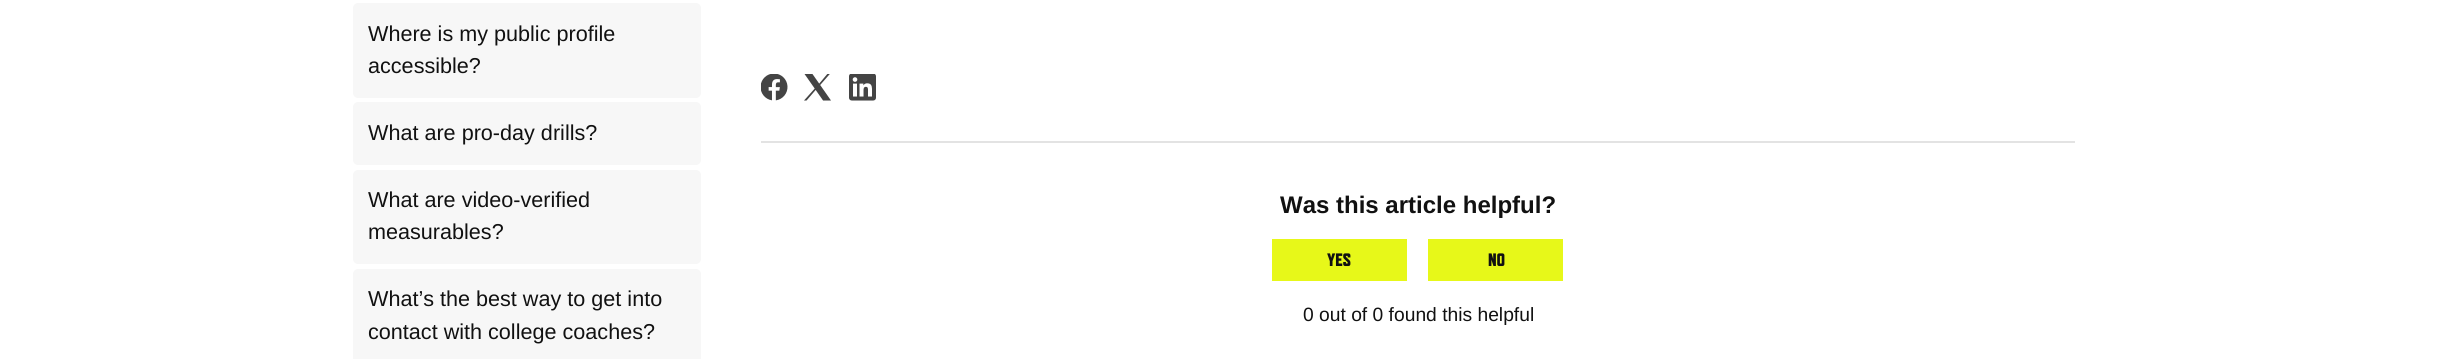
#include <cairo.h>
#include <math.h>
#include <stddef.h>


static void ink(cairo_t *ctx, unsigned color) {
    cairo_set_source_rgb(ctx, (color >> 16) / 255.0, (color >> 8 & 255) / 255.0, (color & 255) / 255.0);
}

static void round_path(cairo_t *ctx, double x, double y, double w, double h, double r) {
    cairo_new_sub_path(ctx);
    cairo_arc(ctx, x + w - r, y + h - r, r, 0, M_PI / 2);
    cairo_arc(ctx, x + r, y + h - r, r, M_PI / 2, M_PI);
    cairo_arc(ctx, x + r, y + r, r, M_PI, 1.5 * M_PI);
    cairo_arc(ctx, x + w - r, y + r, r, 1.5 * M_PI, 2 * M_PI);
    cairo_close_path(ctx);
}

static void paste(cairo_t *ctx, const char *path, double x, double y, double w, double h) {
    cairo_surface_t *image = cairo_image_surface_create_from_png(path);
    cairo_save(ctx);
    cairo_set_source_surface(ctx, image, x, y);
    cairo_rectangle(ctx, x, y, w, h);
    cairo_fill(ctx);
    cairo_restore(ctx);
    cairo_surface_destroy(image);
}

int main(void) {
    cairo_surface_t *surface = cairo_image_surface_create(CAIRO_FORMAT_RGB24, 2445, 359);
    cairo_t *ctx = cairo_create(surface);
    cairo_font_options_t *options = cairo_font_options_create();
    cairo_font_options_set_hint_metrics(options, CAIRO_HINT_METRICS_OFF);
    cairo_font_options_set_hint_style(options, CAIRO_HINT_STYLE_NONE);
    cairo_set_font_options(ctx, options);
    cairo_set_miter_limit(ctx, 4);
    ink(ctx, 0xFFFFFF);
    cairo_paint(ctx);
    ink(ctx, 0xF7F7F7);
    round_path(ctx, 353, 3, 348, 95, 5);
    cairo_fill(ctx);
    cairo_select_font_face(ctx, "Liberation Sans", CAIRO_FONT_SLANT_NORMAL, CAIRO_FONT_WEIGHT_NORMAL);
    cairo_set_font_size(ctx, 21.6);
    ink(ctx, 0x111111);
    cairo_move_to(ctx, 368, 41);
    cairo_show_text(ctx, "Where is my public profile");
    cairo_move_to(ctx, 368, 73);
    cairo_show_text(ctx, "accessible?");
    ink(ctx, 0xF7F7F7);
    round_path(ctx, 353, 102, 348, 63, 5);
    cairo_fill(ctx);
    ink(ctx, 0x111111);
    cairo_move_to(ctx, 368, 140);
    cairo_show_text(ctx, "What are pro-day drills?");
    ink(ctx, 0xF7F7F7);
    round_path(ctx, 353, 170, 348, 94, 5);
    cairo_fill(ctx);
    ink(ctx, 0x111111);
    cairo_move_to(ctx, 368, 207);
    cairo_show_text(ctx, "What are video-verified");
    cairo_move_to(ctx, 368, 239);
    cairo_show_text(ctx, "measurables?");
    ink(ctx, 0xF7F7F7);
    round_path(ctx, 353, 269, 348, 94, 5);
    cairo_fill(ctx);
    ink(ctx, 0x111111);
    cairo_move_to(ctx, 368, 306);
    cairo_show_text(ctx, "What’s the best way to get into");
    cairo_move_to(ctx, 368, 339);
    cairo_show_text(ctx, "contact with college coaches?");
    paste(ctx, "media/1.png", 761, 74, 27, 27);
    paste(ctx, "media/2.png", 804, 74, 27, 27);
    paste(ctx, "media/3.png", 849, 74, 27, 27);
    ink(ctx, 0xE3E3E3);
    cairo_rectangle(ctx, 761, 141, 1314, 2);
    cairo_fill(ctx);
    cairo_select_font_face(ctx, "Liberation Sans", CAIRO_FONT_SLANT_NORMAL, CAIRO_FONT_WEIGHT_BOLD);
    cairo_set_font_size(ctx, 24);
    ink(ctx, 0x111111);
    cairo_move_to(ctx, 1280, 213);
    cairo_show_text(ctx, "Was this article helpful?");
    ink(ctx, 0xE7F819);
    cairo_rectangle(ctx, 1272, 239, 135, 42);
    cairo_fill(ctx);
    cairo_select_font_face(ctx, "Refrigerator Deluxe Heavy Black", CAIRO_FONT_SLANT_NORMAL, CAIRO_FONT_WEIGHT_NORMAL);
    cairo_set_font_size(ctx, 18);
    ink(ctx, 0x111111);
    cairo_move_to(ctx, 1327, 266);
    cairo_show_text(ctx, "YES");
    ink(ctx, 0xE7F819);
    cairo_rectangle(ctx, 1428, 239, 135, 42);
    cairo_fill(ctx);
    ink(ctx, 0x111111);
    cairo_move_to(ctx, 1488, 266);
    cairo_show_text(ctx, "NO");
    cairo_select_font_face(ctx, "Liberation Sans", CAIRO_FONT_SLANT_NORMAL, CAIRO_FONT_WEIGHT_NORMAL);
    cairo_set_font_size(ctx, 19.25);
    cairo_move_to(ctx, 1303, 321);
    cairo_show_text(ctx, "0 out of 0 found this helpful");
    cairo_surface_write_to_png(surface, "image.png");
    cairo_font_options_destroy(options);
    cairo_destroy(ctx);
    cairo_surface_destroy(surface);
    return 0;
}
